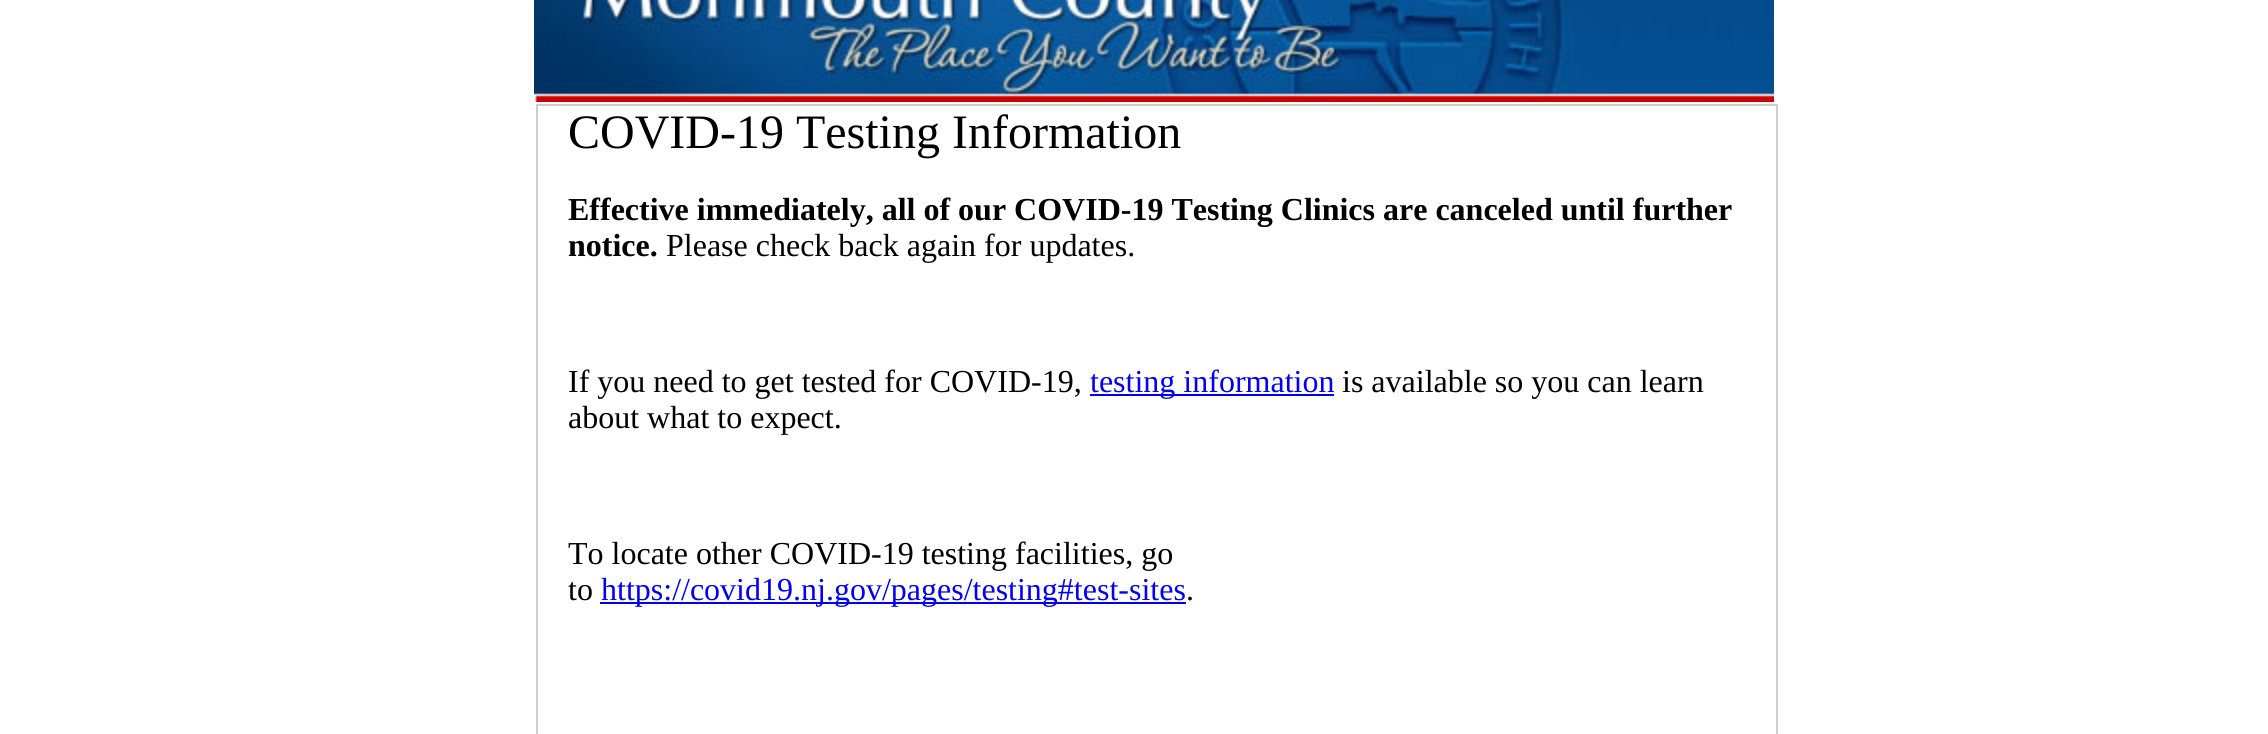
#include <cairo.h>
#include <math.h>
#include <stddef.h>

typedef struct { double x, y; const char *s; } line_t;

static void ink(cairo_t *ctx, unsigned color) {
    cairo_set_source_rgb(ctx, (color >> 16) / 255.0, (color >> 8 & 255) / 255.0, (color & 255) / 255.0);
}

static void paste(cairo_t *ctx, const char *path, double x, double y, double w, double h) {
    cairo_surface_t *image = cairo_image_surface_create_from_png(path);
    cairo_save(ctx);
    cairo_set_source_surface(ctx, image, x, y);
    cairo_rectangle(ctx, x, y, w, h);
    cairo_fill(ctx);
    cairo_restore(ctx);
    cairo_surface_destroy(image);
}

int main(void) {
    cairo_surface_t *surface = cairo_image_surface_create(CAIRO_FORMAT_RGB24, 2268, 734);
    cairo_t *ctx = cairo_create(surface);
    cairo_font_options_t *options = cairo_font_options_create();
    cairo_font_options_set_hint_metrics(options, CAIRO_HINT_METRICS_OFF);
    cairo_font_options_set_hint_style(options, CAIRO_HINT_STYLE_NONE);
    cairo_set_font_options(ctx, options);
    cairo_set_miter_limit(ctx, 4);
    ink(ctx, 0xFFFFFF);
    cairo_paint(ctx);
    paste(ctx, "media/1.png", 534, 0, 1240, 102);
    cairo_rectangle(ctx, 537, 105, 1240, 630);
    ink(ctx, 0xCCCCCC);
    cairo_stroke(ctx);
    cairo_select_font_face(ctx, "Liberation Serif", CAIRO_FONT_SLANT_NORMAL, CAIRO_FONT_WEIGHT_NORMAL);
    cairo_set_font_size(ctx, 48);
    ink(ctx, 0x000000);
    cairo_move_to(ctx, 568, 148);
    cairo_show_text(ctx, "COVID-19 Testing Information");
    cairo_select_font_face(ctx, "Liberation Serif", CAIRO_FONT_SLANT_NORMAL, CAIRO_FONT_WEIGHT_BOLD);
    cairo_set_font_size(ctx, 32);
    cairo_move_to(ctx, 568, 220);
    cairo_show_text(ctx, "Effective immediately, all of our COVID-19 Testing Clinics are canceled until further");
    cairo_move_to(ctx, 568, 256);
    cairo_show_text(ctx, "notice.");
    cairo_select_font_face(ctx, "Liberation Serif", CAIRO_FONT_SLANT_NORMAL, CAIRO_FONT_WEIGHT_NORMAL);
    cairo_move_to(ctx, 666, 256);
    cairo_show_text(ctx, "Please check back again for updates.");
    cairo_move_to(ctx, 568, 392);
    cairo_show_text(ctx, "If you need to get tested for COVID-19,");
    ink(ctx, 0x0000EE);
    cairo_rectangle(ctx, 1090, 394, 244, 2);
    cairo_fill(ctx);
    cairo_move_to(ctx, 1090, 392);
    cairo_show_text(ctx, "testing information");
    ink(ctx, 0x000000);
    {
        static const line_t items[] = {
            {1342, 392, "is available so you can learn"},
            {568, 428, "about what to expect."},
            {568, 564, "To locate other COVID-19 testing facilities, go"},
            {568, 600, "to"},
        };
        for (size_t i = 0; i < sizeof items / sizeof *items; i++) {
            cairo_move_to(ctx, items[i].x, items[i].y);
            cairo_show_text(ctx, items[i].s);
        }
    }
    ink(ctx, 0x0000EE);
    cairo_rectangle(ctx, 600, 602, 586, 2);
    cairo_fill(ctx);
    cairo_move_to(ctx, 601, 600);
    cairo_show_text(ctx, "https://covid19.nj.gov/pages/testing#test-sites");
    ink(ctx, 0x000000);
    cairo_move_to(ctx, 1186, 600);
    cairo_show_text(ctx, ".");
    cairo_surface_write_to_png(surface, "image.png");
    cairo_font_options_destroy(options);
    cairo_destroy(ctx);
    cairo_surface_destroy(surface);
    return 0;
}
